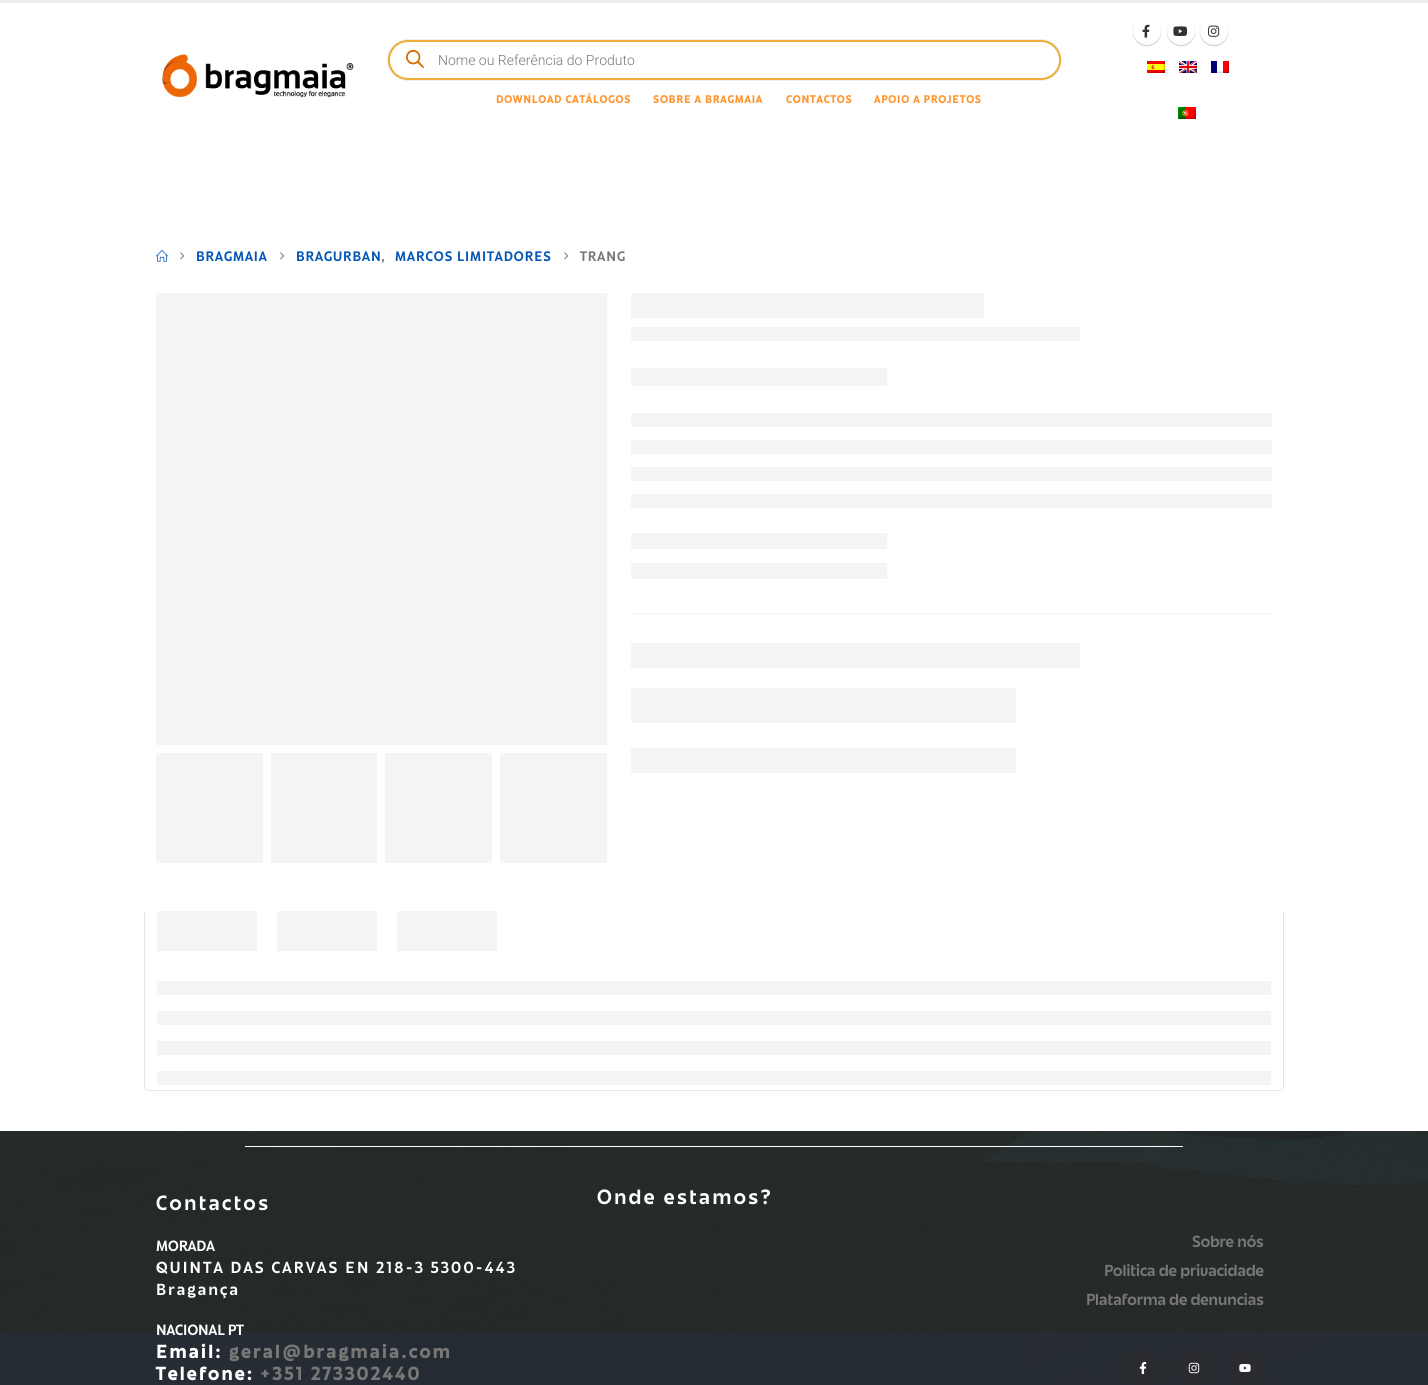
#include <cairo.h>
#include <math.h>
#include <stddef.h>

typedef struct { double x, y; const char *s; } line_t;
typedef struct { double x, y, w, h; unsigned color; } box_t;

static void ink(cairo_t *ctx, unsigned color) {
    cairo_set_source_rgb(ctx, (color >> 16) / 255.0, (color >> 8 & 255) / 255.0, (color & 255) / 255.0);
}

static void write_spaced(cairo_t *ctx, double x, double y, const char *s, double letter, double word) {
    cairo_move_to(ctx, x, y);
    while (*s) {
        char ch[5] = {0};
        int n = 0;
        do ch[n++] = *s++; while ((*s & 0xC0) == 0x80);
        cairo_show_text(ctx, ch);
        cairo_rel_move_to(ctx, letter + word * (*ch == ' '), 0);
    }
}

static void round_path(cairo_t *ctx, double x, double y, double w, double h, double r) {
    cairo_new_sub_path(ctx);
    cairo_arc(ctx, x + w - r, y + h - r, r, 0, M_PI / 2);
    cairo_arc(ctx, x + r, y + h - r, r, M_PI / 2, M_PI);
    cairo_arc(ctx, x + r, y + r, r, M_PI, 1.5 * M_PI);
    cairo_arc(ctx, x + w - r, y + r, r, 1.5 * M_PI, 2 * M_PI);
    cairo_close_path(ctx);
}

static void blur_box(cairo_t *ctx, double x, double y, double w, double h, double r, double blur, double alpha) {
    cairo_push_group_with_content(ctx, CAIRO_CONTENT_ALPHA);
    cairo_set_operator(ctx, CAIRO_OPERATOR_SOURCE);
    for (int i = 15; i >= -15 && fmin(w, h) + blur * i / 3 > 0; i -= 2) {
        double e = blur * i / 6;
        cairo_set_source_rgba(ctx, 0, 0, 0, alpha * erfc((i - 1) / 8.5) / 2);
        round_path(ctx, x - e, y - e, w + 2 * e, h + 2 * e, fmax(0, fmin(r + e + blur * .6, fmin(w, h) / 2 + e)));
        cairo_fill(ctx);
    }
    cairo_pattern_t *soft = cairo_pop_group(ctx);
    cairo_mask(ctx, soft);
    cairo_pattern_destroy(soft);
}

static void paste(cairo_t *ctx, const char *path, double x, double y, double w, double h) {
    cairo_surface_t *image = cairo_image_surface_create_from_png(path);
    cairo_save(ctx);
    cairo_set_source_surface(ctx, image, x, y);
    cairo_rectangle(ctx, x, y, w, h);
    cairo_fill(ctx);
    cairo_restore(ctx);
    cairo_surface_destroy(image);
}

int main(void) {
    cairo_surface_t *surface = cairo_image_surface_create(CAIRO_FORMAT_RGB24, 1428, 1385);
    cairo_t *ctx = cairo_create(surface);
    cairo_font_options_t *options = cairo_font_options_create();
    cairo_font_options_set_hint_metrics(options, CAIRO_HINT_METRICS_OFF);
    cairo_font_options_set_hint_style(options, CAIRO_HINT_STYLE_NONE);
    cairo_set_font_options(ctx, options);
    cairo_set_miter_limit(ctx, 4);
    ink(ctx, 0xFFFFFF);
    cairo_paint(ctx);
    ink(ctx, 0xEDEDED);
    cairo_rectangle(ctx, 0, 0, 1428, 3);
    cairo_fill(ctx);
    paste(ctx, "media/1.png", 162, 54, 192, 44);
    round_path(ctx, 387.5, 39.5, 674, 41, 20.5);
    ink(ctx, 0xEEEEEE);
    cairo_set_line_width(ctx, 1);
    cairo_stroke(ctx);
    ink(ctx, 0xFFFFFF);
    round_path(ctx, 389, 41, 671, 38, 19);
    cairo_fill_preserve(ctx);
    ink(ctx, 0xEDAB38);
    cairo_set_line_width(ctx, 2);
    cairo_stroke(ctx);
    paste(ctx, "media/2.png", 406, 50, 18, 18);
    cairo_select_font_face(ctx, "Roboto Light", CAIRO_FONT_SLANT_NORMAL, CAIRO_FONT_WEIGHT_NORMAL);
    cairo_set_font_size(ctx, 14);
    ink(ctx, 0x777777);
    cairo_move_to(ctx, 438, 65);
    cairo_show_text(ctx, "Nome ou Referência do Produto");
    cairo_select_font_face(ctx, "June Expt", CAIRO_FONT_SLANT_NORMAL, CAIRO_FONT_WEIGHT_BOLD);
    cairo_set_font_size(ctx, 9.4);
    ink(ctx, 0xFF9634);
    {
        static const line_t items[] = {
            {496, 103, "DOWNLOAD CATÁLOGOS"},
            {653, 103, "SOBRE A BRAGMAIA"},
            {786, 103, "CONTACTOS"},
            {874, 103, "APOIO A PROJETOS"},
        };
        for (size_t i = 0; i < sizeof items / sizeof *items; i++) {
            write_spaced(ctx, items[i].x, items[i].y, items[i].s, 1, 0);
        }
    }
    ink(ctx, 0x000000);
    blur_box(ctx, 1133, 18, 28, 28, 14, 0.5, 0.2);
    ink(ctx, 0xFFFFFF);
    cairo_arc(ctx, 1147, 31, 14, 0, 2 * M_PI);
    cairo_fill(ctx);
    paste(ctx, "media/3.png", 1142, 24, 8, 14);
    ink(ctx, 0x000000);
    blur_box(ctx, 1167, 18, 28, 28, 14, 0.5, 0.2);
    ink(ctx, 0xFFFFFF);
    cairo_arc(ctx, 1181, 31, 14, 0, 2 * M_PI);
    cairo_fill(ctx);
    paste(ctx, "media/4.png", 1173, 26, 15, 10);
    ink(ctx, 0x000000);
    blur_box(ctx, 1200, 18, 28, 28, 14, 0.5, 0.2);
    ink(ctx, 0xFFFFFF);
    cairo_arc(ctx, 1214, 31, 14, 0, 2 * M_PI);
    cairo_fill(ctx);
    paste(ctx, "media/5.png", 1208, 25, 12, 12);
    paste(ctx, "media/6.png", 1147, 61, 18, 12);
    paste(ctx, "media/7.png", 1179, 61, 18, 12);
    paste(ctx, "media/8.png", 1211, 61, 18, 12);
    paste(ctx, "media/9.png", 1178, 107, 18, 12);
    paste(ctx, "media/10.png", 156, 250, 12, 12);
    paste(ctx, "media/11.png", 180, 252, 5, 8);
    cairo_select_font_face(ctx, "June Expt", CAIRO_FONT_SLANT_NORMAL, CAIRO_FONT_WEIGHT_NORMAL);
    cairo_set_font_size(ctx, 12);
    ink(ctx, 0x0155B5);
    write_spaced(ctx, 196, 261, "BRAGMAIA", 1, 0);
    paste(ctx, "media/11.png", 280, 252, 5, 8);
    write_spaced(ctx, 296, 261, "BRAGURBAN", 1, 0);
    write_spaced(ctx, 395, 261, "MARCOS LIMITADORES", 1, 0);
    paste(ctx, "media/11.png", 564, 252, 5, 8);
    ink(ctx, 0x777777);
    write_spaced(ctx, 381, 261, ",", 1, 0);
    write_spaced(ctx, 580, 261, "TRANG", 1, 0);
    {
        static const box_t items[] = {
            {500, 753, 107, 110, 0xF4F4F4},
            {385, 753, 107, 110, 0xF4F4F4},
            {271, 753, 106, 110, 0xF4F4F4},
            {156, 753, 107, 110, 0xF4F4F4},
            {156, 293, 451, 452, 0xF4F4F4},
            {631, 748, 385, 25, 0xF4F4F4},
            {631, 688, 385, 35, 0xF4F4F4},
            {631, 643, 449, 25, 0xF4F4F4},
            {631, 613, 641, 1, 0xF4F4F4},
            {631, 563, 256, 16, 0xF4F4F4},
            {631, 533, 256, 16, 0xF4F4F4},
            {631, 494, 641, 14, 0xF4F4F4},
            {631, 467, 641, 14, 0xF4F4F4},
            {631, 440, 641, 14, 0xF4F4F4},
            {631, 413, 641, 14, 0xF4F4F4},
            {631, 368, 256, 18, 0xF4F4F4},
            {631, 327, 449, 14, 0xF4F4F4},
            {631, 293, 353, 25, 0xF4F4F4},
        };
        for (size_t i = 0; i < sizeof items / sizeof *items; i++) {
            ink(ctx, items[i].color);
            cairo_rectangle(ctx, items[i].x, items[i].y, items[i].w, items[i].h);
            cairo_fill(ctx);
        }
    }
    ink(ctx, 0xE7E7E7);
    cairo_set_fill_rule(ctx, CAIRO_FILL_RULE_EVEN_ODD);
    cairo_new_path(ctx);
    cairo_move_to(ctx, 144, 911);
    cairo_line_to(ctx, 1284, 911);
    cairo_line_to(ctx, 1284, 1087);
    cairo_curve_to(ctx, 1284, 1089, 1282, 1091, 1280, 1091);
    cairo_line_to(ctx, 148, 1091);
    cairo_curve_to(ctx, 146, 1091, 144, 1089, 144, 1087);
    cairo_close_path(ctx);
    cairo_move_to(ctx, 145, 911);
    cairo_line_to(ctx, 1283, 911);
    cairo_line_to(ctx, 1283, 1087);
    cairo_curve_to(ctx, 1283, 1089, 1282, 1090, 1280, 1090);
    cairo_line_to(ctx, 148, 1090);
    cairo_curve_to(ctx, 146, 1090, 145, 1089, 145, 1087);
    cairo_close_path(ctx);
    cairo_fill(ctx);
    {
        static const box_t items[] = {
            {157, 1071, 1114, 14, 0xF4F4F4},
            {157, 1041, 1114, 14, 0xF4F4F4},
            {157, 1011, 1114, 14, 0xF4F4F4},
            {157, 981, 1114, 14, 0xF4F4F4},
            {397, 911, 100, 40, 0xF4F4F4},
            {277, 911, 100, 40, 0xF4F4F4},
            {157, 911, 100, 40, 0xF4F4F4},
            {0, 1131, 1428, 254, 0x212529},
        };
        for (size_t i = 0; i < sizeof items / sizeof *items; i++) {
            ink(ctx, items[i].color);
            cairo_rectangle(ctx, items[i].x, items[i].y, items[i].w, items[i].h);
            cairo_fill(ctx);
        }
    }
    paste(ctx, "media/12.png", 0, 1131, 1428, 31);
    ink(ctx, 0xFFFFFF);
    cairo_rectangle(ctx, 245, 1146, 938, 1);
    cairo_fill(ctx);
    paste(ctx, "media/13.png", 0, 1162, 1428, 223);
    cairo_set_font_size(ctx, 18);
    write_spaced(ctx, 156, 1210, "Contactos", 2.5, 0);
    cairo_set_font_size(ctx, 13);
    cairo_move_to(ctx, 156, 1251);
    cairo_show_text(ctx, "MORADA");
    cairo_set_font_size(ctx, 14);
    write_spaced(ctx, 156, 1273, "QUINTA DAS CARVAS EN 218-3 5300-443", 2.25, 0);
    write_spaced(ctx, 156, 1295, "Bragança", 2.25, 0);
    cairo_set_font_size(ctx, 13);
    cairo_move_to(ctx, 156, 1335);
    cairo_show_text(ctx, "NACIONAL PT");
    cairo_select_font_face(ctx, "June Expt", CAIRO_FONT_SLANT_NORMAL, CAIRO_FONT_WEIGHT_BOLD);
    cairo_set_font_size(ctx, 16);
    write_spaced(ctx, 156, 1358, "Email:", 2.6, 0);
    ink(ctx, 0x777777);
    write_spaced(ctx, 229, 1358, "geral@bragmaia.com", 2.6, 0);
    ink(ctx, 0xFFFFFF);
    write_spaced(ctx, 156, 1380, "Telefone:", 2.6, 0);
    ink(ctx, 0x777777);
    write_spaced(ctx, 260, 1380, "+351 273302440", 2.6, 0);
    cairo_select_font_face(ctx, "June Expt", CAIRO_FONT_SLANT_NORMAL, CAIRO_FONT_WEIGHT_NORMAL);
    cairo_set_font_size(ctx, 18);
    ink(ctx, 0xFFFFFF);
    write_spaced(ctx, 597, 1204, "Onde estamos?", 2.5, 0);
    cairo_set_font_size(ctx, 14);
    ink(ctx, 0x777777);
    {
        static const line_t items[] = {
            {1192, 1247, "Sobre nós"},
            {1104, 1276, "Politica de privacidade"},
            {1086, 1305, "Plataforma de denuncias"},
        };
        for (size_t i = 0; i < sizeof items / sizeof *items; i++) {
            cairo_move_to(ctx, items[i].x, items[i].y);
            cairo_show_text(ctx, items[i].s);
        }
    }
    ink(ctx, 0x292B2F);
    cairo_new_path(ctx);
    cairo_arc(ctx, 1143, 1368, 19, 0, 2 * M_PI);
    cairo_fill(ctx);
    paste(ctx, "media/14.png", 1139, 1362, 8, 12);
    cairo_arc(ctx, 1194, 1368, 19, 0, 2 * M_PI);
    cairo_fill(ctx);
    paste(ctx, "media/15.png", 1188, 1362, 12, 12);
    cairo_arc(ctx, 1245, 1368, 19, 0, 2 * M_PI);
    cairo_fill(ctx);
    paste(ctx, "media/16.png", 1239, 1364, 12, 8);
    cairo_surface_write_to_png(surface, "image.png");
    cairo_font_options_destroy(options);
    cairo_destroy(ctx);
    cairo_surface_destroy(surface);
    return 0;
}
